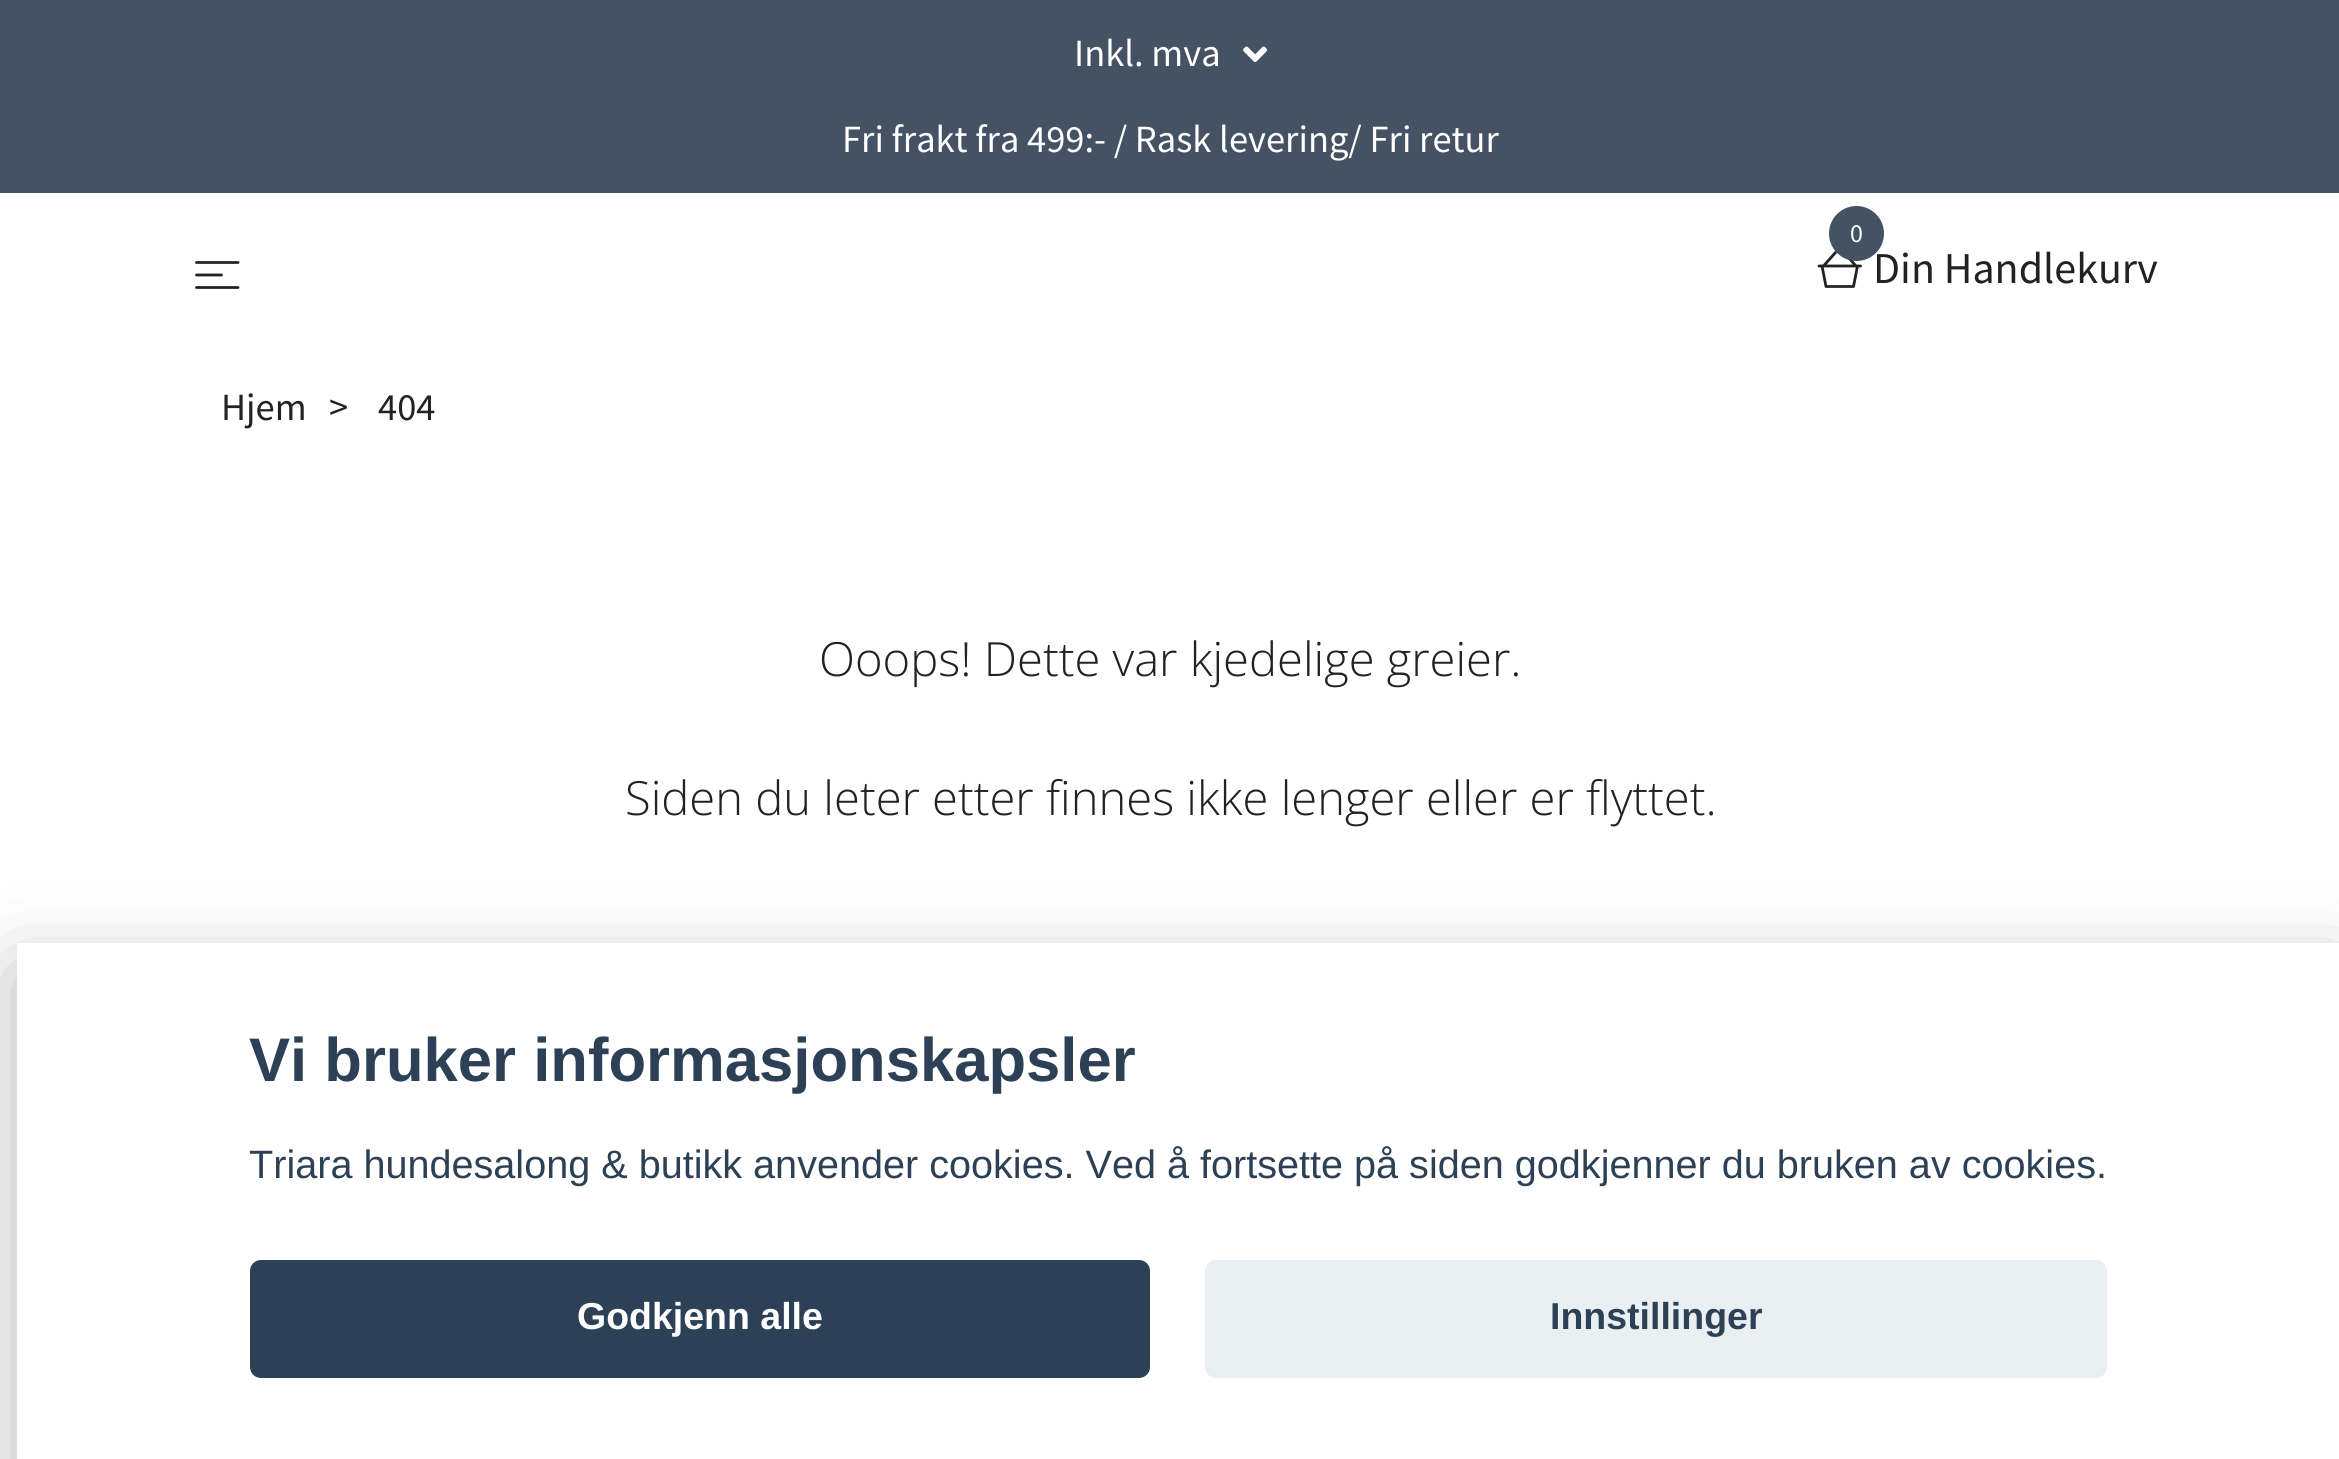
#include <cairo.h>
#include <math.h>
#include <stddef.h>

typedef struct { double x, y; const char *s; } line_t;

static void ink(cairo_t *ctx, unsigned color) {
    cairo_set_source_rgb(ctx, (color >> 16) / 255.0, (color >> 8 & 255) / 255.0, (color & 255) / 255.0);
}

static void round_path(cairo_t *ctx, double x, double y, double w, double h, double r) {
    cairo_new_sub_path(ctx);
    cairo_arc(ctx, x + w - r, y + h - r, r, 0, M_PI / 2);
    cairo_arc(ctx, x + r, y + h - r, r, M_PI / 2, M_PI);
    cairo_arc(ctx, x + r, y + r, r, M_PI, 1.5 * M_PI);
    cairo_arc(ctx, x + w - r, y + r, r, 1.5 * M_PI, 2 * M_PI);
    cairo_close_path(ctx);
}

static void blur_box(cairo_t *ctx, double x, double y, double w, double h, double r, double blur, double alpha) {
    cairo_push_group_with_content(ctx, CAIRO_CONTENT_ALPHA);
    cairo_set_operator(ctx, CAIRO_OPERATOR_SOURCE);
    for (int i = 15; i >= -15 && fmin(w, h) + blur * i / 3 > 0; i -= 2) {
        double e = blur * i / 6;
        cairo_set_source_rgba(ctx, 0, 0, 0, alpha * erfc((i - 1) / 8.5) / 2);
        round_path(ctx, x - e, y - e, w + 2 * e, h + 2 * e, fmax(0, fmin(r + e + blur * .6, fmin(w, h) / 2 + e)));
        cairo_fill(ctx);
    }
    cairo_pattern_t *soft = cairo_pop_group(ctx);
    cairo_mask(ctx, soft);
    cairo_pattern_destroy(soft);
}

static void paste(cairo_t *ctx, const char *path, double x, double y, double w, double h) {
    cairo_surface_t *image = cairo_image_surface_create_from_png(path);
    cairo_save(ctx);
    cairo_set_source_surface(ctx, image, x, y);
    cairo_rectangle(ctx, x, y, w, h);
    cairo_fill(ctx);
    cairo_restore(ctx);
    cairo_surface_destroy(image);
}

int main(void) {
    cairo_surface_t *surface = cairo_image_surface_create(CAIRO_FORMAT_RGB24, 2339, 1459);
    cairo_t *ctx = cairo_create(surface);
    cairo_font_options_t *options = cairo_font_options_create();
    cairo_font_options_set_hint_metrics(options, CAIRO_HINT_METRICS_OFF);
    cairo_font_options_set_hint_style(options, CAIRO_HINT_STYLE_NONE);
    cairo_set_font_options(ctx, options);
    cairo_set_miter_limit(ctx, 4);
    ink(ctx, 0xFFFFFF);
    cairo_paint(ctx);
    ink(ctx, 0x455263);
    cairo_rectangle(ctx, 0, 0, 2339, 193);
    cairo_fill(ctx);
    cairo_select_font_face(ctx, "Source Sans Pro", CAIRO_FONT_SLANT_NORMAL, CAIRO_FONT_WEIGHT_NORMAL);
    cairo_set_font_size(ctx, 38.5);
    ink(ctx, 0xFFFFFF);
    cairo_move_to(ctx, 1074, 66);
    cairo_show_text(ctx, "Inkl. mva");
    paste(ctx, "media/1.png", 1243, 46, 25, 16);
    cairo_move_to(ctx, 842, 152);
    cairo_show_text(ctx, "Fri frakt fra 499:- / Rask levering/ Fri retur");
    cairo_new_path(ctx);
    cairo_move_to(ctx, 196.5, 262.5);
    cairo_line_to(ctx, 238, 262.5);
    cairo_move_to(ctx, 196.5, 275);
    cairo_line_to(ctx, 221.5, 275);
    cairo_move_to(ctx, 196.5, 287.5);
    cairo_line_to(ctx, 238, 287.5);
    ink(ctx, 0x222222);
    cairo_set_line_width(ctx, 2.8);
    cairo_set_line_cap(ctx, CAIRO_LINE_CAP_ROUND);
    cairo_set_line_join(ctx, CAIRO_LINE_JOIN_ROUND);
    cairo_stroke(ctx);
    cairo_new_path(ctx);
    cairo_move_to(ctx, 1822, 266);
    cairo_line_to(ctx, 1826, 286.5);
    cairo_line_to(ctx, 1853.5, 286.5);
    cairo_line_to(ctx, 1857.5, 266);
    cairo_move_to(ctx, 1835.5, 252.5);
    cairo_line_to(ctx, 1823.5, 266);
    cairo_move_to(ctx, 1844, 252.5);
    cairo_line_to(ctx, 1856, 266);
    cairo_move_to(ctx, 1819, 266);
    cairo_line_to(ctx, 1860.5, 266);
    cairo_stroke(ctx);
    cairo_set_font_size(ctx, 44);
    cairo_move_to(ctx, 1873, 283);
    cairo_show_text(ctx, "Din Handlekurv");
    ink(ctx, 0x455263);
    cairo_new_path(ctx);
    cairo_arc(ctx, 1856.5, 233.5, 27.5, 0, 2 * M_PI);
    cairo_fill(ctx);
    cairo_set_font_size(ctx, 26);
    ink(ctx, 0xFFFFFF);
    cairo_move_to(ctx, 1850, 242);
    cairo_show_text(ctx, "0");
    cairo_set_font_size(ctx, 38.5);
    ink(ctx, 0x222222);
    {
        static const line_t items[] = {
            {221, 420, "Hjem"},
            {329, 420, ">"},
            {378, 420, "404"},
        };
        for (size_t i = 0; i < sizeof items / sizeof *items; i++) {
            cairo_move_to(ctx, items[i].x, items[i].y);
            cairo_show_text(ctx, items[i].s);
        }
    }
    cairo_select_font_face(ctx, "Open Sans Light", CAIRO_FONT_SLANT_NORMAL, CAIRO_FONT_WEIGHT_NORMAL);
    cairo_set_font_size(ctx, 47.1);
    cairo_move_to(ctx, 819, 676);
    cairo_show_text(ctx, "Ooops! Dette var kjedelige greier.");
    cairo_move_to(ctx, 625, 815);
    cairo_show_text(ctx, "Siden du leter etter finnes ikke lenger eller er flyttet.");
    ink(ctx, 0x020203);
    blur_box(ctx, 17, 971, 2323, 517, 0, 41, 0.28);
    ink(ctx, 0xFFFFFF);
    cairo_rectangle(ctx, 17, 943, 2322, 516);
    cairo_fill(ctx);
    cairo_select_font_face(ctx, "Liberation Sans", CAIRO_FONT_SLANT_NORMAL, CAIRO_FONT_WEIGHT_BOLD);
    cairo_set_font_size(ctx, 61.6);
    ink(ctx, 0x2D4156);
    cairo_move_to(ctx, 249, 1081);
    cairo_show_text(ctx, "Vi bruker informasjonskapsler");
    cairo_select_font_face(ctx, "Liberation Sans", CAIRO_FONT_SLANT_NORMAL, CAIRO_FONT_WEIGHT_NORMAL);
    cairo_set_font_size(ctx, 39.6);
    cairo_move_to(ctx, 249, 1178);
    cairo_show_text(ctx, "Triara hundesalong & butikk anvender cookies. Ved å fortsette på siden godkjenner du bruken av cookies.");
    round_path(ctx, 250, 1260, 900, 118, 11);
    cairo_fill(ctx);
    cairo_select_font_face(ctx, "Liberation Sans", CAIRO_FONT_SLANT_NORMAL, CAIRO_FONT_WEIGHT_BOLD);
    cairo_set_font_size(ctx, 37.5);
    ink(ctx, 0xFFFFFF);
    cairo_move_to(ctx, 577, 1329);
    cairo_show_text(ctx, "Godkjenn alle");
    ink(ctx, 0xEAEFF2);
    round_path(ctx, 1205, 1260, 902, 118, 11);
    cairo_fill(ctx);
    ink(ctx, 0x2D4156);
    cairo_move_to(ctx, 1550, 1329);
    cairo_show_text(ctx, "Innstillinger");
    cairo_surface_write_to_png(surface, "image.png");
    cairo_font_options_destroy(options);
    cairo_destroy(ctx);
    cairo_surface_destroy(surface);
    return 0;
}
